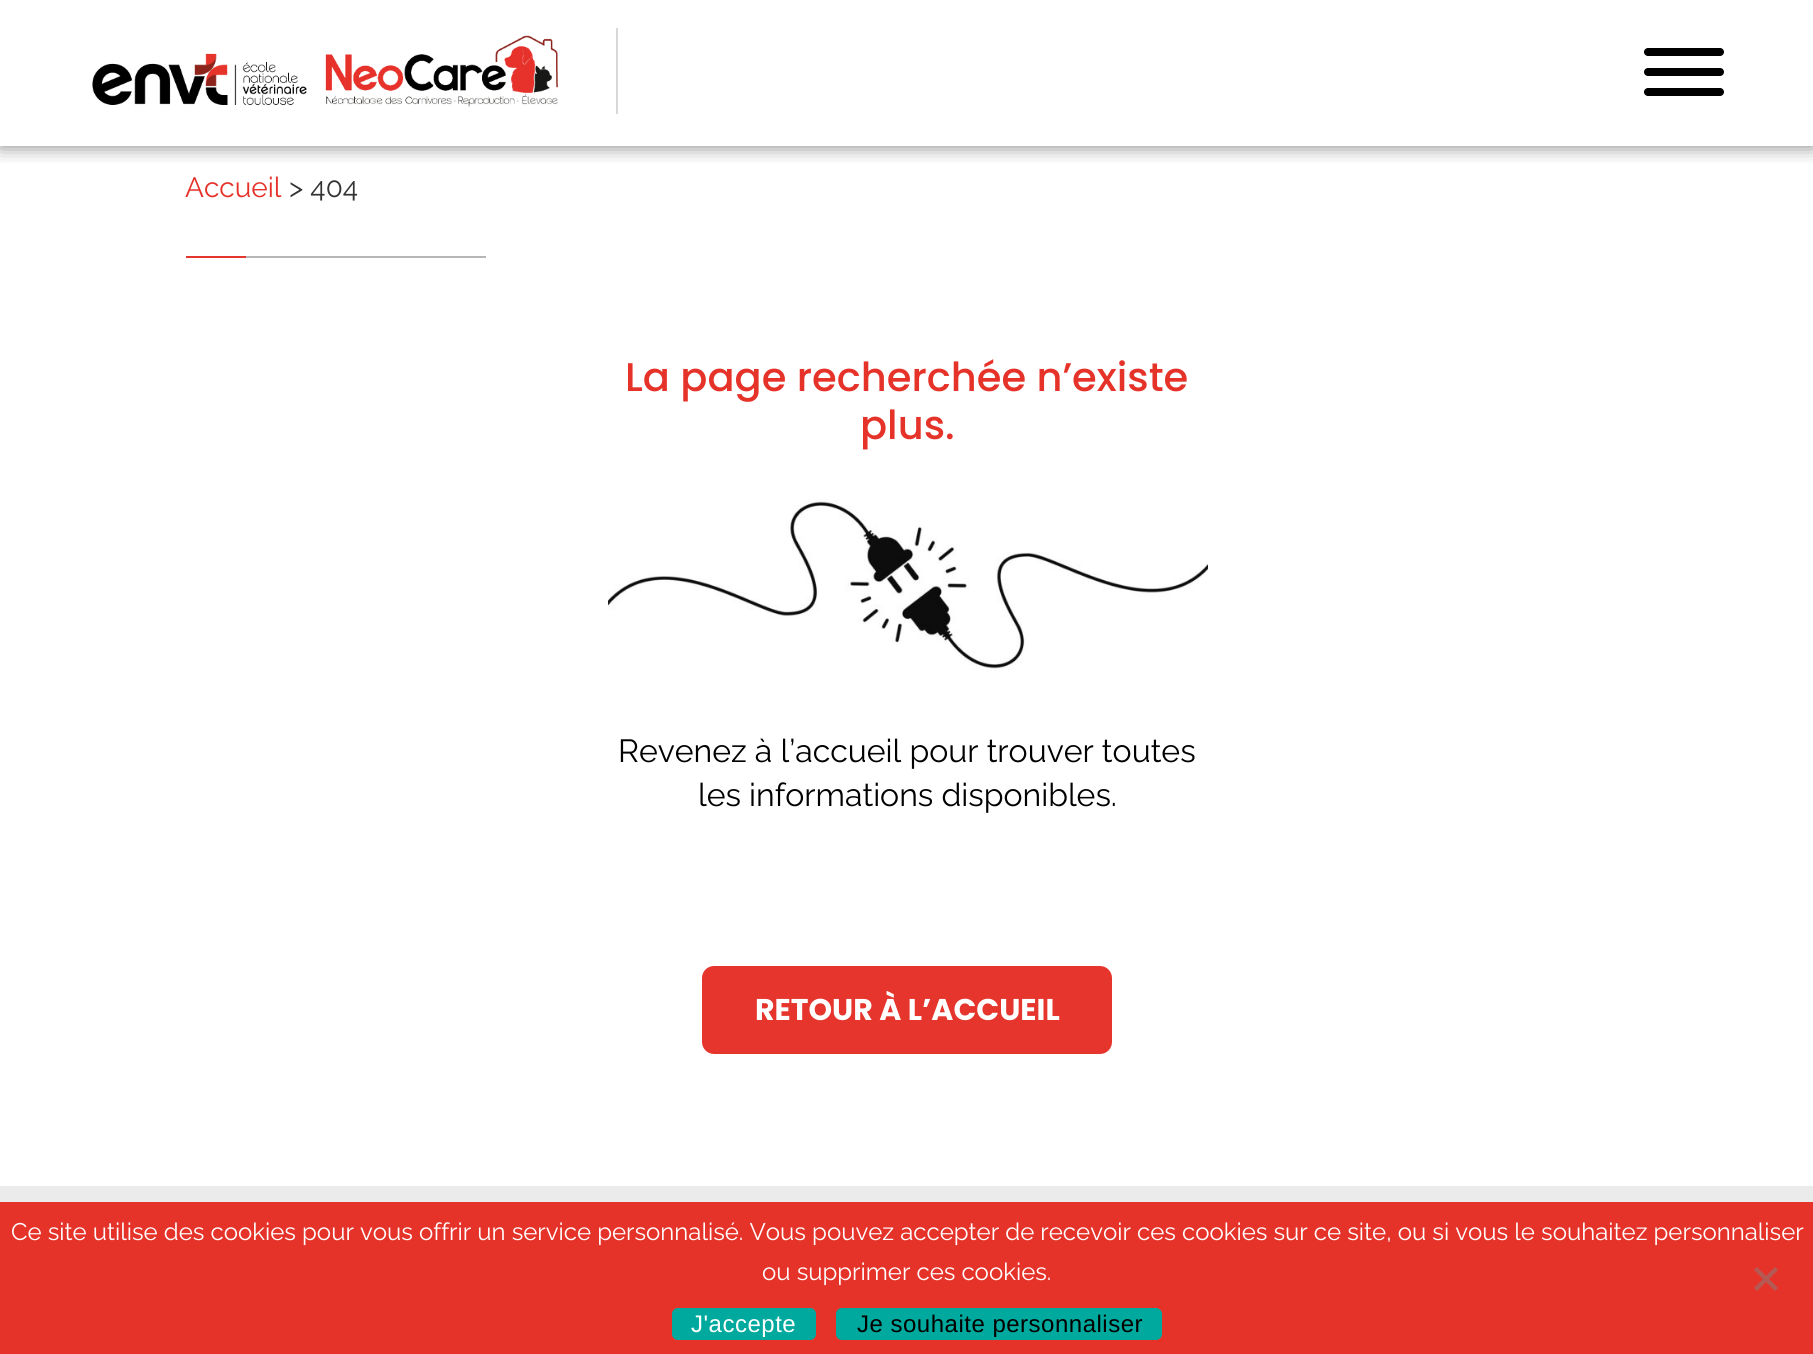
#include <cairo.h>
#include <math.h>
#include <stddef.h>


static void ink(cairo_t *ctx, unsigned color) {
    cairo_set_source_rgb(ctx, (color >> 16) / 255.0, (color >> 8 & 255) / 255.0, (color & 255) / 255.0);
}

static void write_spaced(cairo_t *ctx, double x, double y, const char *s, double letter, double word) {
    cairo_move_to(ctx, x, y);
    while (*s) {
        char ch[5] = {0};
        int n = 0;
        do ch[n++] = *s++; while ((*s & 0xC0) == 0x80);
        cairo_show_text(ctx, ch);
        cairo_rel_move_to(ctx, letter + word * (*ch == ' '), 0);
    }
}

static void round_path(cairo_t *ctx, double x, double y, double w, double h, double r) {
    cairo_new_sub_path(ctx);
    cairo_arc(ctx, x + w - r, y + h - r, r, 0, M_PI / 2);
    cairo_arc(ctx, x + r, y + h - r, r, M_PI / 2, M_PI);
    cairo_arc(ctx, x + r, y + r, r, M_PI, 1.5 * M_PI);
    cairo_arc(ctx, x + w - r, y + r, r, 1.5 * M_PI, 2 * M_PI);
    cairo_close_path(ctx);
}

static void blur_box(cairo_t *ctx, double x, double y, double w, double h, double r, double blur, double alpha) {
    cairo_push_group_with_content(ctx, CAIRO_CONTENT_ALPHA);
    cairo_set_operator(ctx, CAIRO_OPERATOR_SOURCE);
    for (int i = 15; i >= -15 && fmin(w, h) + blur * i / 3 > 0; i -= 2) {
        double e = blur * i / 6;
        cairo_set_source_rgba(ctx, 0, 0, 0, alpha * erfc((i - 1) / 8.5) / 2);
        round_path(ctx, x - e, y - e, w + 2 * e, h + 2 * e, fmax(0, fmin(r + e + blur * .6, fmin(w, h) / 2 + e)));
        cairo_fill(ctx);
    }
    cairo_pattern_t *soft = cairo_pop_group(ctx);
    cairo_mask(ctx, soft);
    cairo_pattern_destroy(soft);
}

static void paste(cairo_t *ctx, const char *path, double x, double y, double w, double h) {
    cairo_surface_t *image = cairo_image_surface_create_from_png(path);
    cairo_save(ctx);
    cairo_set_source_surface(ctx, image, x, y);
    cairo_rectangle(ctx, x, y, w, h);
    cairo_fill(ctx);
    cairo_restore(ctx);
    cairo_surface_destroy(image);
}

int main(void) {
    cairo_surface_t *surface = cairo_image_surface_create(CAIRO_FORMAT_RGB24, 1813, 1354);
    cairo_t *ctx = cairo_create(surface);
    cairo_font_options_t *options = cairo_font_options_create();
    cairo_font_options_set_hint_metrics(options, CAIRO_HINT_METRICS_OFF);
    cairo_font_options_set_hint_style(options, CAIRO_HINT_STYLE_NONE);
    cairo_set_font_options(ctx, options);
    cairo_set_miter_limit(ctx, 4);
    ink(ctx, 0xFFFFFF);
    cairo_paint(ctx);
    cairo_save(ctx);
    cairo_rectangle(ctx, 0, 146, 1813, 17);
    cairo_clip(ctx);
    ink(ctx, 0x000000);
    blur_box(ctx, 0, 0, 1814, 146, 0, 10, 0.5);
    cairo_restore(ctx);
    ink(ctx, 0xD8D8D8);
    cairo_rectangle(ctx, 616, 28, 2, 86);
    cairo_fill(ctx);
    paste(ctx, "media/1.png", 92, 35, 466, 72);
    ink(ctx, 0x000000);
    round_path(ctx, 1644, 68, 80, 8, 4);
    cairo_fill(ctx);
    round_path(ctx, 1644, 48, 80, 8, 4);
    cairo_fill(ctx);
    round_path(ctx, 1644, 88, 80, 8, 4);
    cairo_fill(ctx);
    cairo_select_font_face(ctx, "Raleway", CAIRO_FONT_SLANT_NORMAL, CAIRO_FONT_WEIGHT_NORMAL);
    cairo_set_font_size(ctx, 28);
    ink(ctx, 0xE6332A);
    cairo_move_to(ctx, 185, 197);
    cairo_show_text(ctx, "Accueil");
    ink(ctx, 0x333333);
    cairo_move_to(ctx, 289, 197);
    cairo_show_text(ctx, "> 404");
    ink(ctx, 0xE5352D);
    cairo_rectangle(ctx, 186, 256, 60, 2);
    cairo_fill(ctx);
    ink(ctx, 0xB6B6B6);
    cairo_rectangle(ctx, 246, 256, 240, 2);
    cairo_fill(ctx);
    cairo_select_font_face(ctx, "Poppins Medium", CAIRO_FONT_SLANT_NORMAL, CAIRO_FONT_WEIGHT_NORMAL);
    cairo_set_font_size(ctx, 40);
    ink(ctx, 0xE6332A);
    cairo_move_to(ctx, 625, 391);
    cairo_show_text(ctx, "La page recherchée n’existe");
    cairo_move_to(ctx, 860, 439);
    cairo_show_text(ctx, "plus.");
    paste(ctx, "media/2.png", 608, 499, 600, 171);
    cairo_select_font_face(ctx, "Raleway", CAIRO_FONT_SLANT_NORMAL, CAIRO_FONT_WEIGHT_NORMAL);
    cairo_set_font_size(ctx, 32);
    ink(ctx, 0x000000);
    cairo_move_to(ctx, 618, 762);
    cairo_show_text(ctx, "Revenez à l’accueil pour trouver toutes");
    cairo_move_to(ctx, 698, 806);
    cairo_show_text(ctx, "les informations disponibles.");
    ink(ctx, 0xE5352D);
    round_path(ctx, 702, 966, 410, 88, 12);
    cairo_fill(ctx);
    cairo_select_font_face(ctx, "Poppins", CAIRO_FONT_SLANT_NORMAL, CAIRO_FONT_WEIGHT_BOLD);
    cairo_set_font_size(ctx, 30);
    ink(ctx, 0xFFFFFF);
    cairo_move_to(ctx, 755, 1020);
    cairo_show_text(ctx, "RETOUR À L’ACCUEIL");
    ink(ctx, 0xEBEBEB);
    cairo_rectangle(ctx, 0, 1186, 1813, 16);
    cairo_fill(ctx);
    ink(ctx, 0xE6332A);
    cairo_rectangle(ctx, 0, 1202, 1813, 152);
    cairo_fill(ctx);
    cairo_select_font_face(ctx, "Raleway", CAIRO_FONT_SLANT_NORMAL, CAIRO_FONT_WEIGHT_NORMAL);
    cairo_set_font_size(ctx, 24);
    ink(ctx, 0xFFFFFF);
    cairo_move_to(ctx, 11, 1240);
    cairo_show_text(ctx, "Ce site utilise des cookies pour vous offrir un service personnalisé. Vous pouvez accepter de recevoir ces cookies sur ce site, ou si vous le souhaitez personnaliser");
    cairo_move_to(ctx, 762, 1280);
    cairo_show_text(ctx, "ou supprimer ces cookies.");
    ink(ctx, 0xB35A55);
    cairo_new_path(ctx);
    cairo_move_to(ctx, 1775, 1267);
    cairo_line_to(ctx, 1778, 1270);
    cairo_line_to(ctx, 1757, 1291);
    cairo_line_to(ctx, 1754, 1288);
    cairo_close_path(ctx);
    cairo_fill(ctx);
    cairo_new_path(ctx);
    cairo_move_to(ctx, 1754, 1270);
    cairo_line_to(ctx, 1757, 1267);
    cairo_line_to(ctx, 1778, 1288);
    cairo_line_to(ctx, 1775, 1291);
    cairo_close_path(ctx);
    cairo_fill(ctx);
    ink(ctx, 0x00A99D);
    round_path(ctx, 672, 1308, 144, 32, 6);
    cairo_fill(ctx);
    cairo_select_font_face(ctx, "Liberation Sans", CAIRO_FONT_SLANT_NORMAL, CAIRO_FONT_WEIGHT_NORMAL);
    ink(ctx, 0xFFFFFF);
    write_spaced(ctx, 691, 1332, "J'accepte", 0.5, 0);
    ink(ctx, 0x00A99D);
    round_path(ctx, 836, 1308, 326, 32, 6);
    cairo_fill(ctx);
    ink(ctx, 0x000000);
    write_spaced(ctx, 857, 1332, "Je souhaite personnaliser", 0.5, 0);
    cairo_surface_write_to_png(surface, "image.png");
    cairo_font_options_destroy(options);
    cairo_destroy(ctx);
    cairo_surface_destroy(surface);
    return 0;
}
